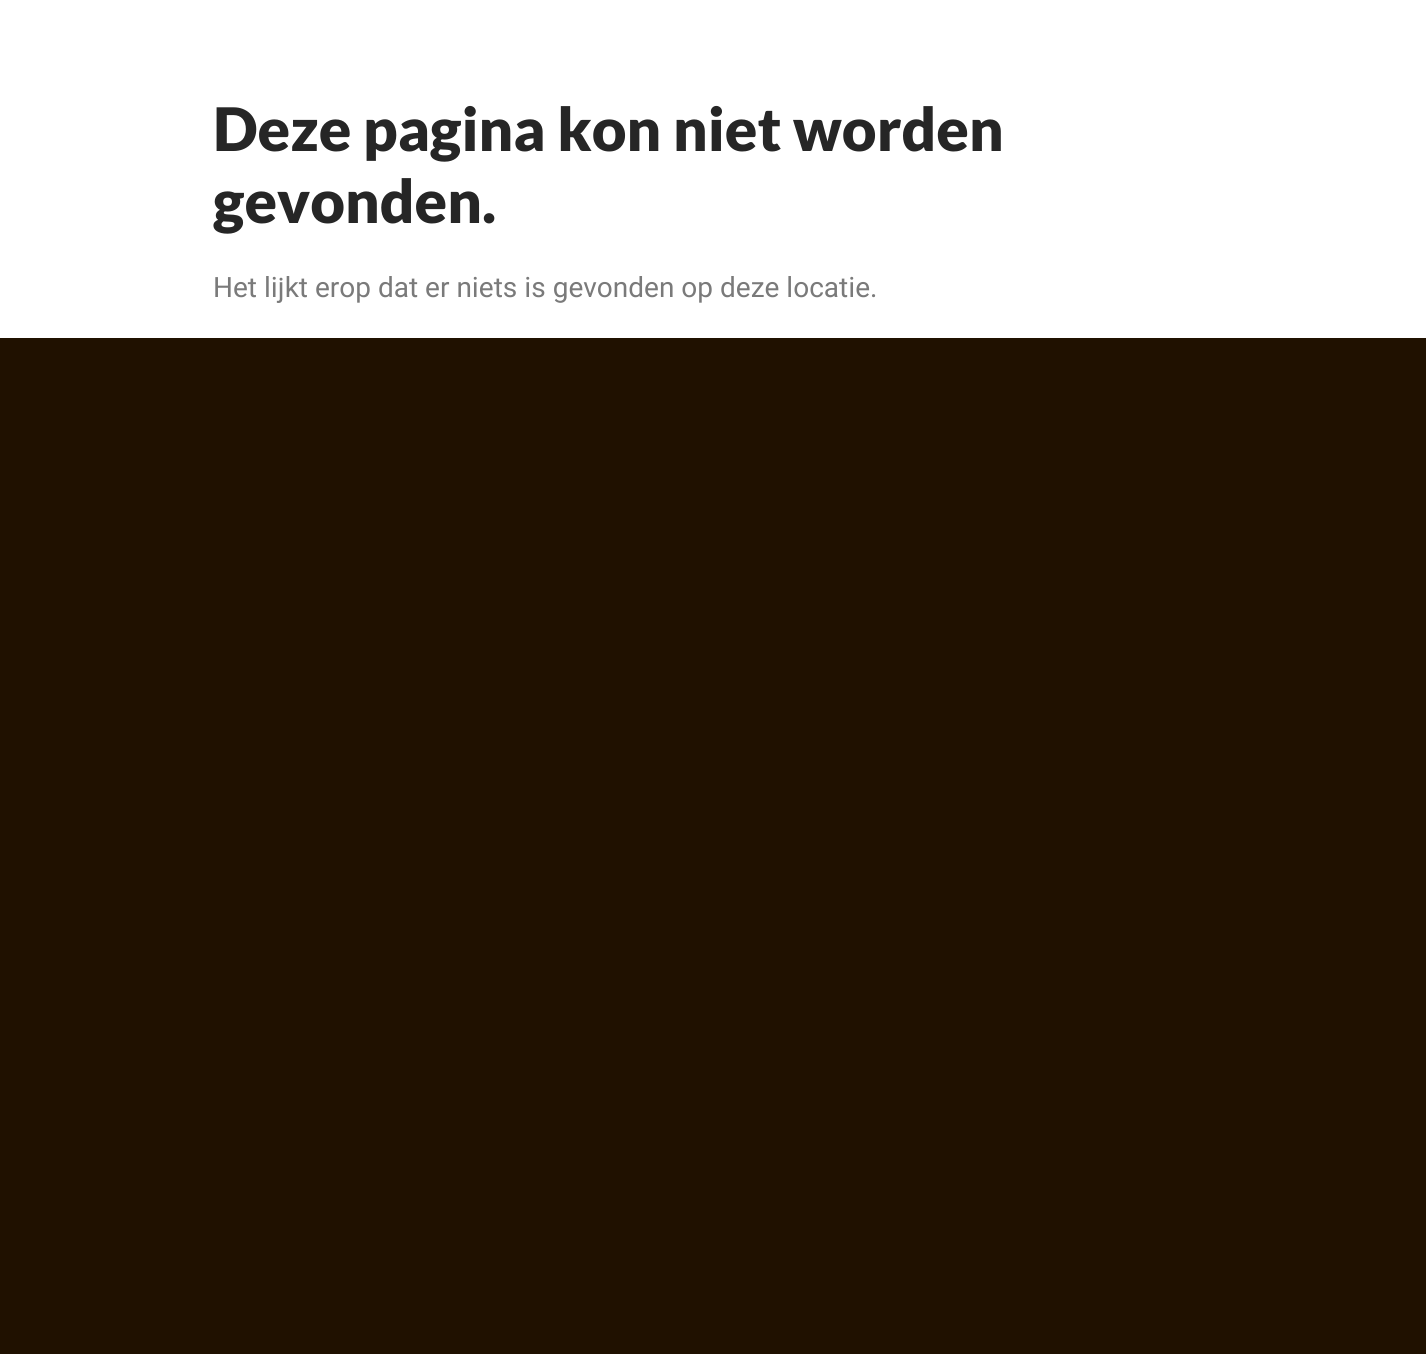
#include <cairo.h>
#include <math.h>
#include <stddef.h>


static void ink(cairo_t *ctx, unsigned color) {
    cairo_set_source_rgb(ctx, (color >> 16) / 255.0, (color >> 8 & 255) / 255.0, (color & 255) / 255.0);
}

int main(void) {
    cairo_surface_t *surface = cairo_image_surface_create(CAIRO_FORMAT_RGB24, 1426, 1354);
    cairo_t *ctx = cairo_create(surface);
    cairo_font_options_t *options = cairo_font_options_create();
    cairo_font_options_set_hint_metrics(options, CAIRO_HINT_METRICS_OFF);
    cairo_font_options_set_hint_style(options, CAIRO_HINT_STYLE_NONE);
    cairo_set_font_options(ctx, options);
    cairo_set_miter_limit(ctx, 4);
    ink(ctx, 0xFFFFFF);
    cairo_paint(ctx);
    cairo_select_font_face(ctx, "Lato Black", CAIRO_FONT_SLANT_NORMAL, CAIRO_FONT_WEIGHT_NORMAL);
    cairo_set_font_size(ctx, 60);
    ink(ctx, 0x262626);
    cairo_move_to(ctx, 213, 151);
    cairo_show_text(ctx, "Deze pagina kon niet worden");
    cairo_move_to(ctx, 213, 223);
    cairo_show_text(ctx, "gevonden.");
    cairo_select_font_face(ctx, "Heebo", CAIRO_FONT_SLANT_NORMAL, CAIRO_FONT_WEIGHT_NORMAL);
    cairo_set_font_size(ctx, 28);
    ink(ctx, 0x7A7A7A);
    cairo_move_to(ctx, 213, 297);
    cairo_show_text(ctx, "Het lijkt erop dat er niets is gevonden op deze locatie.");
    ink(ctx, 0x201100);
    cairo_rectangle(ctx, 0, 338, 1426, 1016);
    cairo_fill(ctx);
    cairo_surface_write_to_png(surface, "image.png");
    cairo_font_options_destroy(options);
    cairo_destroy(ctx);
    cairo_surface_destroy(surface);
    return 0;
}
